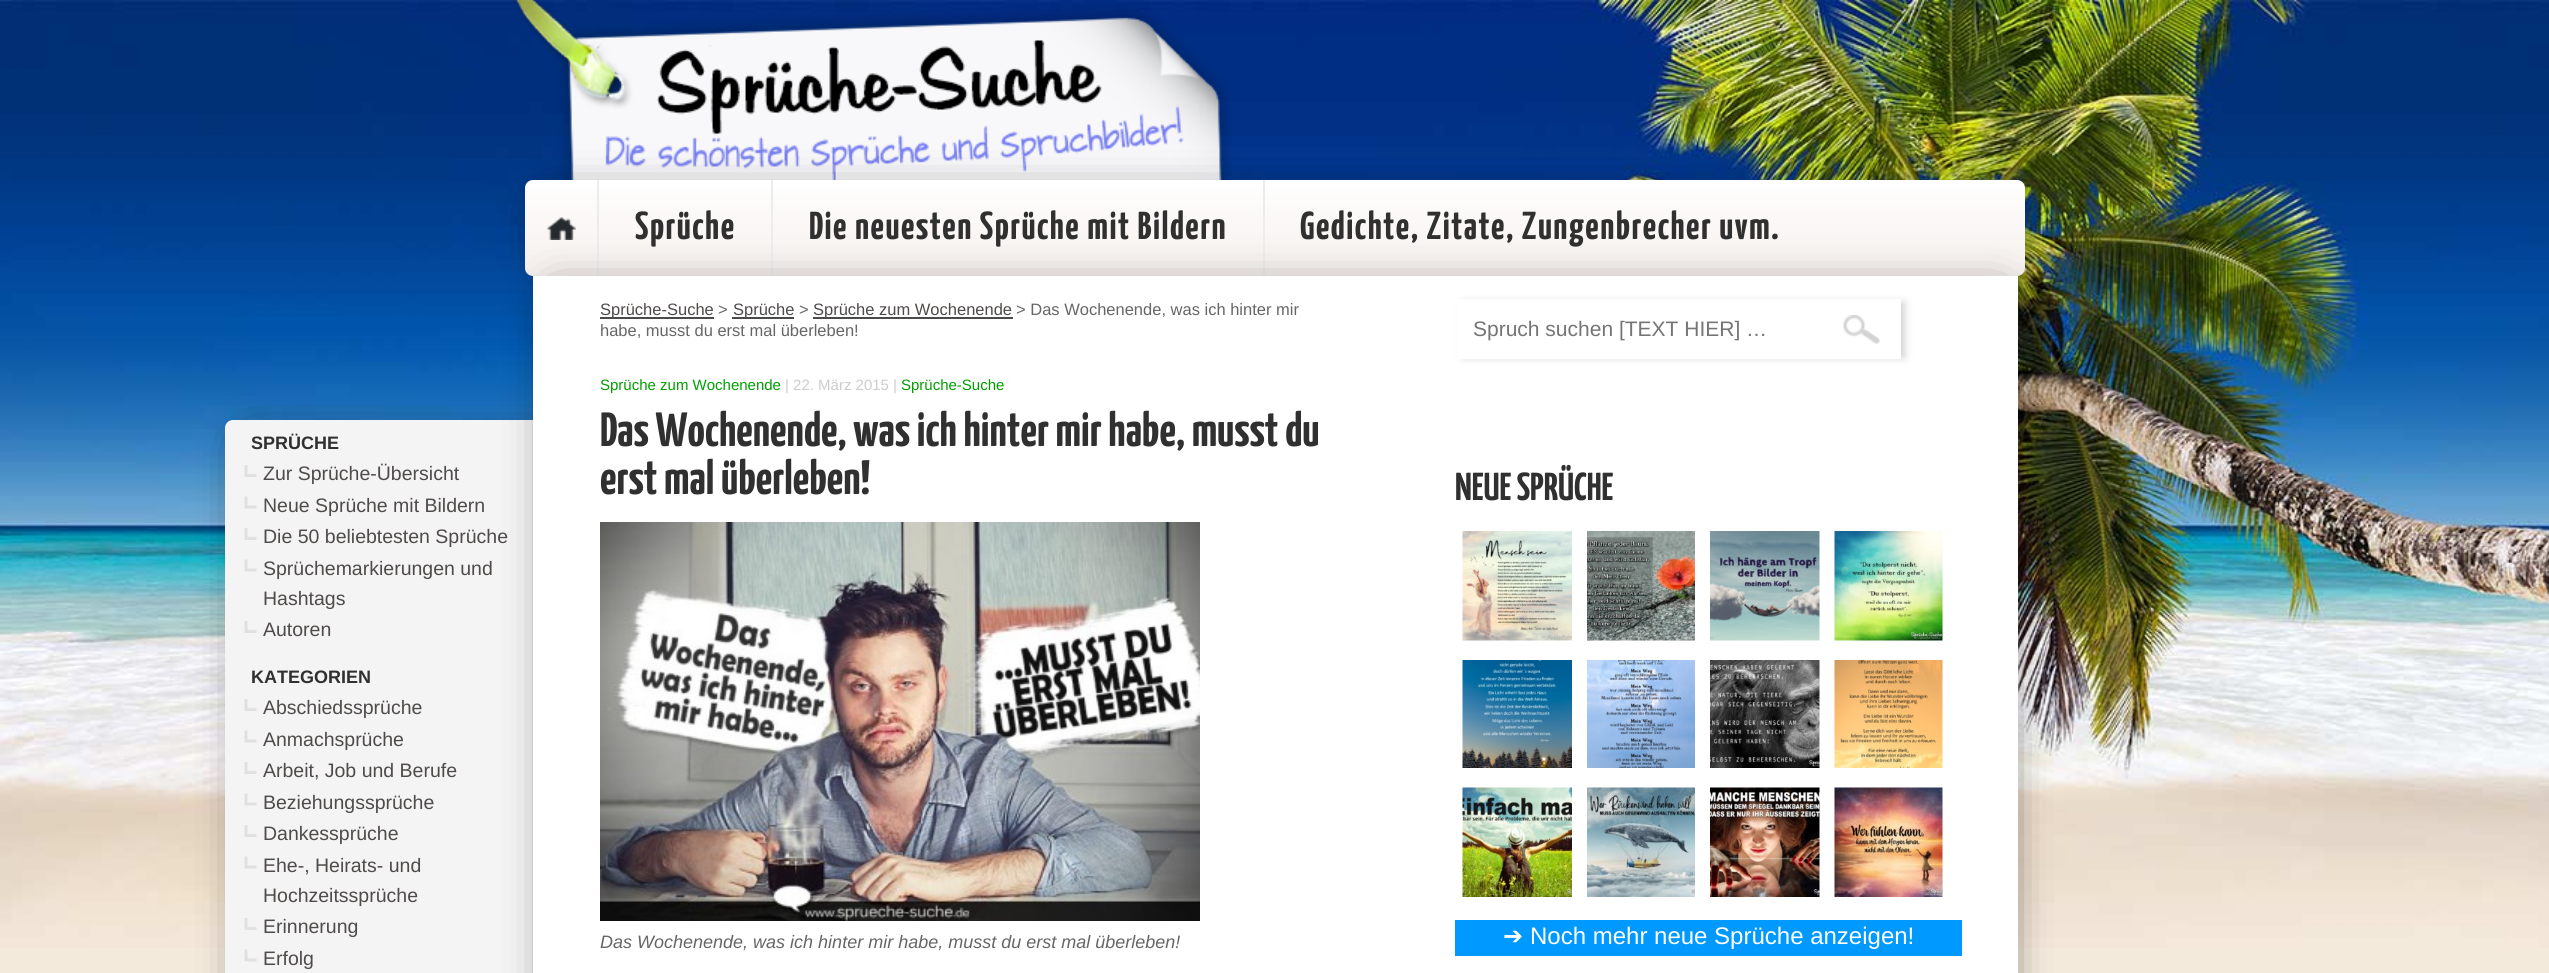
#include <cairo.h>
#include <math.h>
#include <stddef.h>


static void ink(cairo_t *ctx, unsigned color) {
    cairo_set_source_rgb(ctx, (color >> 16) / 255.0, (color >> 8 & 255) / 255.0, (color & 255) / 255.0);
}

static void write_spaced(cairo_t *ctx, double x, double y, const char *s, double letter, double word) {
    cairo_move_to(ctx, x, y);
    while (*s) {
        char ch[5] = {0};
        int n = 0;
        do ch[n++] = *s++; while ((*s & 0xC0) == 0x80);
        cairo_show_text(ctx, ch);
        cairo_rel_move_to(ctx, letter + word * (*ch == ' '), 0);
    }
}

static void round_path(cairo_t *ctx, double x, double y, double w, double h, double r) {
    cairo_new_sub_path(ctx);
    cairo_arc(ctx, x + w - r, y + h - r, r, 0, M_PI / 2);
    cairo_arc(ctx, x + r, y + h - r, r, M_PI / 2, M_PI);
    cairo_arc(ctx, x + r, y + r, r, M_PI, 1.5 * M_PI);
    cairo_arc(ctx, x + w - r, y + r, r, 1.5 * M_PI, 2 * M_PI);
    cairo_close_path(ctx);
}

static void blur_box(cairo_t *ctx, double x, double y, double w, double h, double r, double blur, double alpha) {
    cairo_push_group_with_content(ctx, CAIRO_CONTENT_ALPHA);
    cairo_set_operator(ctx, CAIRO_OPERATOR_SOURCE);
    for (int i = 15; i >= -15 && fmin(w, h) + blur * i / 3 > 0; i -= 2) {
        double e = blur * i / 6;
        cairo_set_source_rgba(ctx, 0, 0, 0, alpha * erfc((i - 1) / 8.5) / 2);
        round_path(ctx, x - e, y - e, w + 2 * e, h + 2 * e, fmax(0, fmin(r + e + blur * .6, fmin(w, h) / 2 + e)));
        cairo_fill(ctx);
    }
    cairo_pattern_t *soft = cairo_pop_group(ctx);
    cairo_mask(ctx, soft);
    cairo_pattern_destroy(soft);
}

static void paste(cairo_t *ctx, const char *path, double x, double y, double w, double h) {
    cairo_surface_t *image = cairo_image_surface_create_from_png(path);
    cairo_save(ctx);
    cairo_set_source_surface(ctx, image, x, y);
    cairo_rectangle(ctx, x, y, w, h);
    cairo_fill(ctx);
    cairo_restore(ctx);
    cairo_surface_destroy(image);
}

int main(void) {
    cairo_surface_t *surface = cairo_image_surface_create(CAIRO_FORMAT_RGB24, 2549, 973);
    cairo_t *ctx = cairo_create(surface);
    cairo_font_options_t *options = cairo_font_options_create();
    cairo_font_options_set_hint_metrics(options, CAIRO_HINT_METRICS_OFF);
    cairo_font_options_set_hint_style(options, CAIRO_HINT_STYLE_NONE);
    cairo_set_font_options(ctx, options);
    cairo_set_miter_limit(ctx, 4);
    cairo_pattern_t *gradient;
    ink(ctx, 0xF4EADC);
    cairo_paint(ctx);
    paste(ctx, "media/1.png", 0, 0, 2549, 948);
    paste(ctx, "media/2.png", 513, 0, 720, 180);
    ink(ctx, 0x070606);
    blur_box(ctx, 551, 206, 1455, 51, 0, 22.5, 1);
    gradient = cairo_pattern_create_linear(1275, 180, 1275, 276);
    cairo_pattern_add_color_stop_rgba(gradient, 0, 1, 1, 1, 1);
    cairo_pattern_add_color_stop_rgba(gradient, 1, 0.961, 0.937, 0.925, 1);
    cairo_set_source(ctx, gradient);
    cairo_pattern_destroy(gradient);
    round_path(ctx, 525, 180, 1500, 96, 8);
    cairo_fill(ctx);
    ink(ctx, 0xECECEC);
    cairo_rectangle(ctx, 597, 180, 2, 96);
    cairo_fill(ctx);
    paste(ctx, "media/3.png", 547, 217, 29, 23);
    cairo_rectangle(ctx, 771, 180, 2, 96);
    cairo_fill(ctx);
    cairo_select_font_face(ctx, "Yanone Kaffeesatz", CAIRO_FONT_SLANT_NORMAL, CAIRO_FONT_WEIGHT_BOLD);
    cairo_set_font_size(ctx, 39);
    ink(ctx, 0x303030);
    write_spaced(ctx, 635, 239, "Sprüche", 1.5, 0);
    ink(ctx, 0xECECEC);
    cairo_rectangle(ctx, 1263, 180, 2, 96);
    cairo_fill(ctx);
    ink(ctx, 0x303030);
    write_spaced(ctx, 809, 239, "Die neuesten Sprüche mit Bildern", 1.5, 0);
    write_spaced(ctx, 1300, 239, "Gedichte, Zitate, Zungenbrecher uvm.", 1.5, 0);
    ink(ctx, 0x070606);
    blur_box(ctx, 251, 446, 285, 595, 0, 22.5, 1);
    ink(ctx, 0xF4F4F4);
    round_path(ctx, 225, 420, 330, 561, 8);
    cairo_fill(ctx);
    cairo_select_font_face(ctx, "Liberation Sans", CAIRO_FONT_SLANT_NORMAL, CAIRO_FONT_WEIGHT_BOLD);
    cairo_set_font_size(ctx, 18);
    ink(ctx, 0x303030);
    cairo_move_to(ctx, 251, 449);
    cairo_show_text(ctx, "SPRÜCHE");
    paste(ctx, "media/4.png", 244, 465, 13, 12);
    cairo_select_font_face(ctx, "Liberation Sans", CAIRO_FONT_SLANT_NORMAL, CAIRO_FONT_WEIGHT_NORMAL);
    cairo_set_font_size(ctx, 19.5);
    ink(ctx, 0x4F4B4A);
    cairo_move_to(ctx, 263, 480);
    cairo_show_text(ctx, "Zur Sprüche-Übersicht");
    paste(ctx, "media/5.png", 244, 496, 13, 13);
    cairo_move_to(ctx, 263, 512);
    cairo_show_text(ctx, "Neue Sprüche mit Bildern");
    paste(ctx, "media/4.png", 244, 528, 13, 12);
    cairo_move_to(ctx, 263, 543);
    cairo_show_text(ctx, "Die 50 beliebtesten Sprüche");
    paste(ctx, "media/5.png", 244, 559, 13, 13);
    cairo_move_to(ctx, 263, 575);
    cairo_show_text(ctx, "Sprüchemarkierungen und");
    cairo_move_to(ctx, 263, 605);
    cairo_show_text(ctx, "Hashtags");
    paste(ctx, "media/4.png", 244, 621, 13, 12);
    cairo_move_to(ctx, 263, 636);
    cairo_show_text(ctx, "Autoren");
    cairo_select_font_face(ctx, "Liberation Sans", CAIRO_FONT_SLANT_NORMAL, CAIRO_FONT_WEIGHT_BOLD);
    cairo_set_font_size(ctx, 18);
    ink(ctx, 0x303030);
    cairo_move_to(ctx, 251, 683);
    cairo_show_text(ctx, "KATEGORIEN");
    paste(ctx, "media/4.png", 244, 699, 13, 12);
    cairo_select_font_face(ctx, "Liberation Sans", CAIRO_FONT_SLANT_NORMAL, CAIRO_FONT_WEIGHT_NORMAL);
    cairo_set_font_size(ctx, 19.5);
    ink(ctx, 0x4F4B4A);
    cairo_move_to(ctx, 263, 714);
    cairo_show_text(ctx, "Abschiedssprüche");
    paste(ctx, "media/5.png", 244, 730, 13, 13);
    cairo_move_to(ctx, 263, 746);
    cairo_show_text(ctx, "Anmachsprüche");
    paste(ctx, "media/4.png", 244, 762, 13, 12);
    cairo_move_to(ctx, 263, 777);
    cairo_show_text(ctx, "Arbeit, Job und Berufe");
    paste(ctx, "media/5.png", 244, 793, 13, 13);
    cairo_move_to(ctx, 263, 809);
    cairo_show_text(ctx, "Beziehungssprüche");
    paste(ctx, "media/4.png", 244, 825, 13, 12);
    cairo_move_to(ctx, 263, 840);
    cairo_show_text(ctx, "Dankessprüche");
    paste(ctx, "media/5.png", 244, 856, 13, 13);
    cairo_move_to(ctx, 263, 872);
    cairo_show_text(ctx, "Ehe-, Heirats- und");
    cairo_move_to(ctx, 263, 902);
    cairo_show_text(ctx, "Hochzeitssprüche");
    paste(ctx, "media/4.png", 244, 918, 13, 12);
    cairo_move_to(ctx, 263, 933);
    cairo_show_text(ctx, "Erinnerung");
    paste(ctx, "media/5.png", 244, 949, 13, 13);
    cairo_move_to(ctx, 263, 965);
    cairo_show_text(ctx, "Erfolg");
    ink(ctx, 0x070606);
    blur_box(ctx, 558, 302, 1440, 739, 0, 22.5, 1);
    ink(ctx, 0xFFFFFF);
    cairo_rectangle(ctx, 533, 276, 1485, 697);
    cairo_fill(ctx);
    ink(ctx, 0x4A4A4A);
    cairo_rectangle(ctx, 600, 317, 114, 2);
    cairo_fill(ctx);
    cairo_set_font_size(ctx, 16.5);
    ink(ctx, 0x4F4B4A);
    cairo_move_to(ctx, 600, 315);
    cairo_show_text(ctx, "Sprüche-Suche");
    ink(ctx, 0x666666);
    cairo_move_to(ctx, 718, 315);
    cairo_show_text(ctx, ">");
    ink(ctx, 0x4A4A4A);
    cairo_rectangle(ctx, 732, 317, 62, 2);
    cairo_fill(ctx);
    ink(ctx, 0x4F4B4A);
    cairo_move_to(ctx, 733, 315);
    cairo_show_text(ctx, "Sprüche");
    ink(ctx, 0x666666);
    cairo_move_to(ctx, 799, 315);
    cairo_show_text(ctx, ">");
    ink(ctx, 0x4A4A4A);
    cairo_rectangle(ctx, 813, 317, 200, 2);
    cairo_fill(ctx);
    ink(ctx, 0x4F4B4A);
    cairo_move_to(ctx, 813, 315);
    cairo_show_text(ctx, "Sprüche zum Wochenende");
    ink(ctx, 0x666666);
    cairo_move_to(ctx, 1016, 315);
    cairo_show_text(ctx, "> Das Wochenende, was ich hinter mir");
    cairo_move_to(ctx, 600, 336);
    cairo_show_text(ctx, "habe, musst du erst mal überleben!");
    cairo_set_font_size(ctx, 15);
    ink(ctx, 0x009F00);
    cairo_move_to(ctx, 600, 390);
    cairo_show_text(ctx, "Sprüche zum Wochenende");
    ink(ctx, 0xCCCCCC);
    cairo_move_to(ctx, 785, 390);
    cairo_show_text(ctx, "| 22. März 2015 |");
    ink(ctx, 0x009F00);
    cairo_move_to(ctx, 901, 390);
    cairo_show_text(ctx, "Sprüche-Suche");
    cairo_select_font_face(ctx, "Yanone Kaffeesatz", CAIRO_FONT_SLANT_NORMAL, CAIRO_FONT_WEIGHT_BOLD);
    cairo_set_font_size(ctx, 48);
    ink(ctx, 0x303030);
    cairo_move_to(ctx, 600, 446);
    cairo_show_text(ctx, "Das Wochenende, was ich hinter mir habe, musst du");
    cairo_move_to(ctx, 600, 494);
    cairo_show_text(ctx, "erst mal überleben!");
    paste(ctx, "media/6.png", 600, 522, 600, 399);
    cairo_select_font_face(ctx, "Liberation Sans", CAIRO_FONT_SLANT_ITALIC, CAIRO_FONT_WEIGHT_NORMAL);
    cairo_set_font_size(ctx, 18);
    ink(ctx, 0x666666);
    cairo_move_to(ctx, 600, 948);
    cairo_show_text(ctx, "Das Wochenende, was ich hinter mir habe, musst du erst mal überleben!");
    ink(ctx, 0xCCCCCC);
    blur_box(ctx, 1464, 303, 440, 54, 0, 4.5, 1);
    ink(ctx, 0xFFFFFF);
    cairo_rectangle(ctx, 1457, 299, 444, 60);
    cairo_fill(ctx);
    cairo_select_font_face(ctx, "Liberation Sans", CAIRO_FONT_SLANT_NORMAL, CAIRO_FONT_WEIGHT_NORMAL);
    cairo_set_font_size(ctx, 21);
    ink(ctx, 0x757575);
    cairo_move_to(ctx, 1473, 336);
    cairo_show_text(ctx, "Spruch suchen [TEXT HIER] …");
    paste(ctx, "media/7.png", 1843, 315, 37, 29);
    cairo_select_font_face(ctx, "Yanone Kaffeesatz", CAIRO_FONT_SLANT_NORMAL, CAIRO_FONT_WEIGHT_BOLD);
    cairo_set_font_size(ctx, 39);
    ink(ctx, 0x303030);
    cairo_move_to(ctx, 1455, 500);
    cairo_show_text(ctx, "NEUE SPRÜCHE");
    paste(ctx, "media/8.png", 1462, 531, 110, 110);
    paste(ctx, "media/9.png", 1587, 531, 108, 110);
    paste(ctx, "media/10.png", 1710, 531, 110, 110);
    paste(ctx, "media/11.png", 1834, 531, 109, 110);
    paste(ctx, "media/12.png", 1462, 660, 110, 108);
    paste(ctx, "media/13.png", 1587, 660, 108, 108);
    paste(ctx, "media/14.png", 1710, 660, 110, 108);
    paste(ctx, "media/15.png", 1834, 660, 109, 108);
    paste(ctx, "media/16.png", 1462, 787, 110, 110);
    paste(ctx, "media/17.png", 1587, 787, 108, 110);
    paste(ctx, "media/18.png", 1710, 787, 110, 110);
    paste(ctx, "media/19.png", 1834, 787, 109, 110);
    ink(ctx, 0x0099FF);
    cairo_rectangle(ctx, 1455, 920, 507, 36);
    cairo_fill(ctx);
    cairo_select_font_face(ctx, "DejaVu Sans", CAIRO_FONT_SLANT_NORMAL, CAIRO_FONT_WEIGHT_NORMAL);
    cairo_set_font_size(ctx, 24);
    ink(ctx, 0xFFFFFF);
    cairo_move_to(ctx, 1503, 944);
    cairo_show_text(ctx, "➔");
    cairo_select_font_face(ctx, "Liberation Sans", CAIRO_FONT_SLANT_NORMAL, CAIRO_FONT_WEIGHT_NORMAL);
    cairo_move_to(ctx, 1530, 944);
    cairo_show_text(ctx, "Noch mehr neue Sprüche anzeigen!");
    cairo_surface_write_to_png(surface, "image.png");
    cairo_font_options_destroy(options);
    cairo_destroy(ctx);
    cairo_surface_destroy(surface);
    return 0;
}
